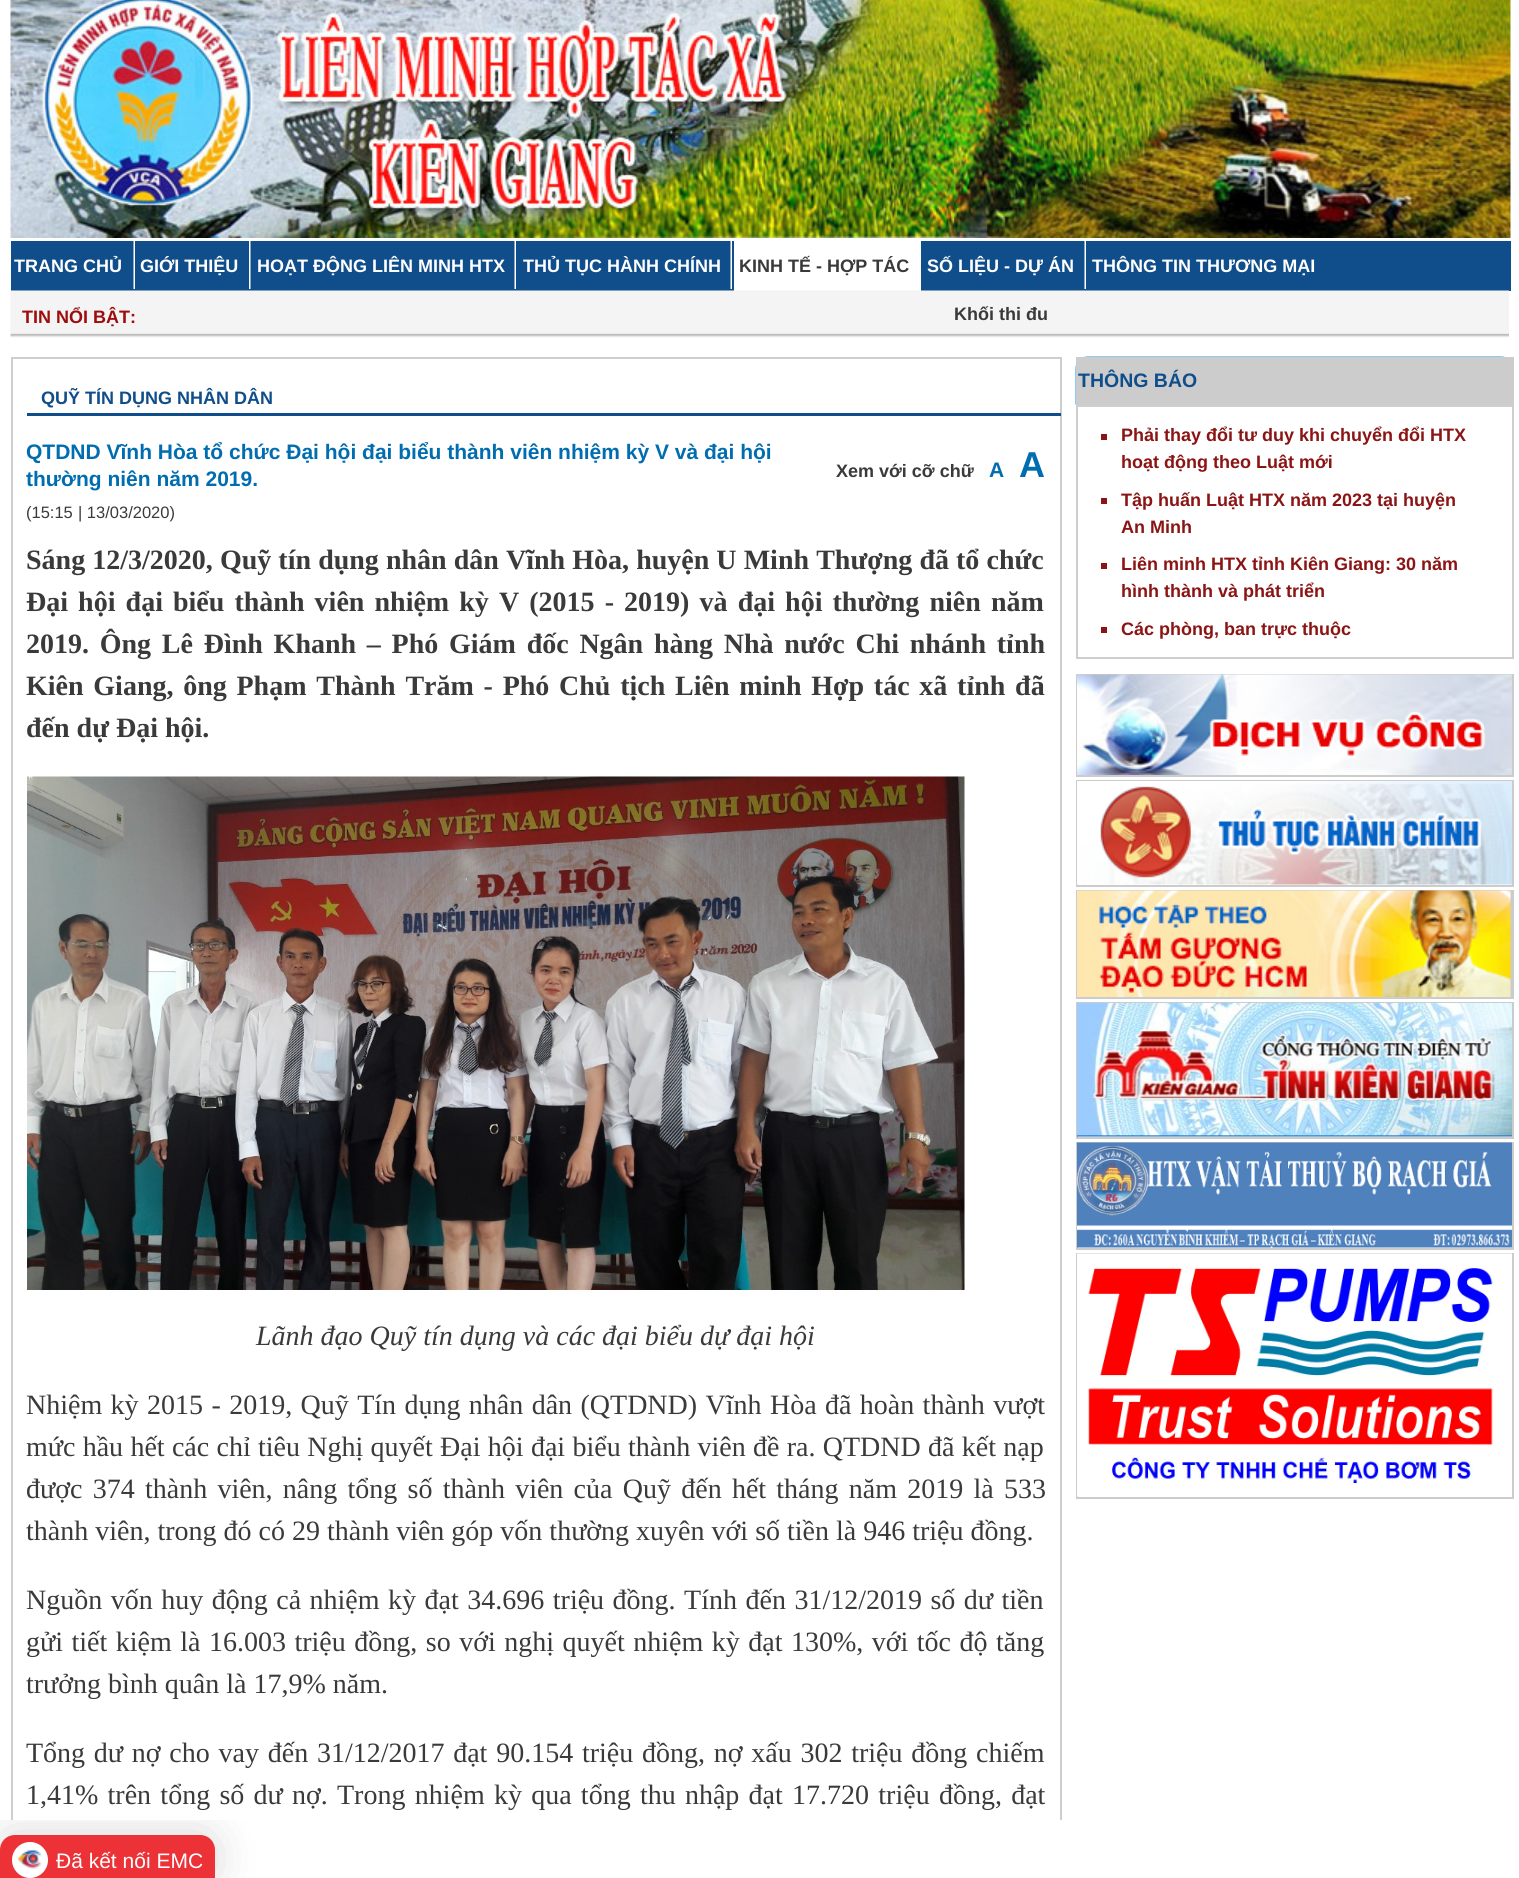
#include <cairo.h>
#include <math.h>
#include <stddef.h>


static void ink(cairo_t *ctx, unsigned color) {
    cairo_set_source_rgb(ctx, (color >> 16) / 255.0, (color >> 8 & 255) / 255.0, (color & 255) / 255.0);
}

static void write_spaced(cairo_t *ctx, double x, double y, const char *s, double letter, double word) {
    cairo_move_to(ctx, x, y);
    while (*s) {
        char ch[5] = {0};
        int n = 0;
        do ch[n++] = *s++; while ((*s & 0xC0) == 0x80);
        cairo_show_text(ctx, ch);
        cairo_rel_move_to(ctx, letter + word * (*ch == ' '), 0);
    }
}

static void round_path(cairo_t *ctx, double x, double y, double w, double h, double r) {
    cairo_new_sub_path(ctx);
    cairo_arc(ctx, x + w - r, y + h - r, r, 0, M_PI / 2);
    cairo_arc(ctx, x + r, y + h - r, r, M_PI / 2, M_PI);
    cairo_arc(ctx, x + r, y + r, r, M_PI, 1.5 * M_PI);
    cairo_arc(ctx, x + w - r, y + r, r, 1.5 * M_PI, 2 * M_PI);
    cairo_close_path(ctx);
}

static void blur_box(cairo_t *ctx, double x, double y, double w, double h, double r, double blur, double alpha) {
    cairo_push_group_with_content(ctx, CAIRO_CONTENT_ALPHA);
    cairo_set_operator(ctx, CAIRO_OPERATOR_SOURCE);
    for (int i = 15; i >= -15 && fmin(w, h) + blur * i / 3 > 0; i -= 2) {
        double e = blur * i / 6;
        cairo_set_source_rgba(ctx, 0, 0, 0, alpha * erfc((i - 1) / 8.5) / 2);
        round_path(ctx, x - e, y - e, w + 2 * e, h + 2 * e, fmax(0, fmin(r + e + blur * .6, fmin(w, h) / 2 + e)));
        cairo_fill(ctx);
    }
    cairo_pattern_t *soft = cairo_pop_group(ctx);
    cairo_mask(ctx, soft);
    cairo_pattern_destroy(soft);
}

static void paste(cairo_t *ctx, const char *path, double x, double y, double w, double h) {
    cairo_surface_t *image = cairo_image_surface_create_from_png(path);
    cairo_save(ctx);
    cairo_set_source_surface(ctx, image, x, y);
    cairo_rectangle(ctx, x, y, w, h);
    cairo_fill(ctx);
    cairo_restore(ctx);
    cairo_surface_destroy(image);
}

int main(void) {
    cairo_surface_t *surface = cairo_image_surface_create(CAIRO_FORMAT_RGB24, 1519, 1878);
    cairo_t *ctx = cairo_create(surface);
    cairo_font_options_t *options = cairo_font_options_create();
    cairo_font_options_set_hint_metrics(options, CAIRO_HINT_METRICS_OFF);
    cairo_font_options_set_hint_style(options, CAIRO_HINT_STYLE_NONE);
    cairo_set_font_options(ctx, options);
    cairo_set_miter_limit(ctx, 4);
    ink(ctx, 0xFFFFFF);
    cairo_paint(ctx);
    paste(ctx, "media/1.png", 10, 0, 1501, 238);
    ink(ctx, 0x104E8B);
    cairo_rectangle(ctx, 11, 241, 1500, 50);
    cairo_fill(ctx);
    paste(ctx, "media/2.png", 133, 241, 2, 48);
    cairo_select_font_face(ctx, "Liberation Sans", CAIRO_FONT_SLANT_NORMAL, CAIRO_FONT_WEIGHT_BOLD);
    cairo_set_font_size(ctx, 18);
    ink(ctx, 0xFFFFFF);
    cairo_move_to(ctx, 14, 272);
    cairo_show_text(ctx, "TRANG CHỦ");
    paste(ctx, "media/3.png", 249, 241, 2, 48);
    cairo_move_to(ctx, 140, 272);
    cairo_show_text(ctx, "GIỚI THIỆU");
    paste(ctx, "media/2.png", 514, 241, 2, 48);
    cairo_move_to(ctx, 257, 272);
    cairo_show_text(ctx, "HOẠT ĐỘNG LIÊN MINH HTX");
    paste(ctx, "media/2.png", 730, 241, 2, 48);
    cairo_move_to(ctx, 523, 272);
    cairo_show_text(ctx, "THỦ TỤC HÀNH CHÍNH");
    cairo_rectangle(ctx, 734, 241, 187, 50);
    cairo_fill(ctx);
    ink(ctx, 0x3A3A3A);
    cairo_move_to(ctx, 739, 272);
    cairo_show_text(ctx, "KINH TẾ - HỢP TÁC");
    paste(ctx, "media/2.png", 1084, 241, 2, 48);
    ink(ctx, 0xFFFFFF);
    cairo_move_to(ctx, 927, 272);
    cairo_show_text(ctx, "SỐ LIỆU - DỰ ÁN");
    cairo_move_to(ctx, 1092, 272);
    cairo_show_text(ctx, "THÔNG TIN THƯƠNG MẠI");
    paste(ctx, "media/4.png", 10, 290, 1499, 48);
    ink(ctx, 0x9D0D0D);
    cairo_move_to(ctx, 22, 323);
    cairo_show_text(ctx, "TIN NỔI BẬT:");
    ink(ctx, 0x3A3A3A);
    cairo_move_to(ctx, 954, 320);
    cairo_show_text(ctx, "Khối thi đu");
    cairo_save(ctx);
    cairo_rectangle(ctx, 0, 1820, 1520, 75);
    cairo_clip(ctx);
    ink(ctx, 0x000000);
    blur_box(ctx, 0, 1833, 215, 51, 15, 22.5, 0.15);
    cairo_restore(ctx);
    ink(ctx, 0xEC3237);
    cairo_new_path(ctx);
    cairo_move_to(ctx, 15, 1835);
    cairo_line_to(ctx, 200, 1835);
    cairo_curve_to(ctx, 208.5, 1835, 215, 1841.5, 215, 1850);
    cairo_line_to(ctx, 215, 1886);
    cairo_line_to(ctx, 0, 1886);
    cairo_line_to(ctx, 0, 1850);
    cairo_curve_to(ctx, 0, 1841.5, 6.5, 1835, 15, 1835);
    cairo_close_path(ctx);
    cairo_fill(ctx);
    ink(ctx, 0xFFFFFF);
    cairo_arc(ctx, 30, 1860, 18, 0, 2 * M_PI);
    cairo_fill(ctx);
    paste(ctx, "media/13.png", 18, 1850, 24, 19);
    cairo_save(ctx);
    cairo_rectangle(ctx, 0, 0, 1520, 1820);
    cairo_clip(ctx);
    cairo_rectangle(ctx, 12, 358, 1049, 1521);
    ink(ctx, 0xCECECE);
    cairo_stroke(ctx);
    cairo_restore(ctx);
    ink(ctx, 0x104E8B);
    cairo_rectangle(ctx, 27, 413, 1034, 3);
    cairo_fill(ctx);
    cairo_move_to(ctx, 41, 404);
    cairo_show_text(ctx, "QUỸ TÍN DỤNG NHÂN DÂN");
    cairo_set_font_size(ctx, 21);
    ink(ctx, 0x016DB1);
    cairo_move_to(ctx, 26, 459);
    cairo_show_text(ctx, "QTDND Vĩnh Hòa tổ chức Đại hội đại biểu thành viên nhiệm kỳ V và đại hội");
    cairo_move_to(ctx, 26, 486);
    cairo_show_text(ctx, "thường niên năm 2019.");
    cairo_set_font_size(ctx, 18);
    ink(ctx, 0x3A3A3A);
    cairo_move_to(ctx, 836, 477);
    cairo_show_text(ctx, "Xem với cỡ chữ");
    cairo_set_font_size(ctx, 21);
    ink(ctx, 0x016DB1);
    cairo_move_to(ctx, 989, 477);
    cairo_show_text(ctx, "A");
    cairo_set_font_size(ctx, 36);
    cairo_move_to(ctx, 1019, 477);
    cairo_show_text(ctx, "A");
    cairo_select_font_face(ctx, "Liberation Sans", CAIRO_FONT_SLANT_NORMAL, CAIRO_FONT_WEIGHT_NORMAL);
    cairo_set_font_size(ctx, 16.5);
    ink(ctx, 0x3A3A3A);
    cairo_move_to(ctx, 26, 518);
    cairo_show_text(ctx, "(15:15");
    cairo_move_to(ctx, 78, 518);
    cairo_show_text(ctx, "| 13/03/2020)");
    cairo_select_font_face(ctx, "Liberation Serif", CAIRO_FONT_SLANT_NORMAL, CAIRO_FONT_WEIGHT_BOLD);
    cairo_set_font_size(ctx, 28);
    write_spaced(ctx, 26, 569, "Sáng 12/3/2020, Quỹ tín dụng nhân dân Vĩnh Hòa, huyện U Minh Thượng đã tổ chức", 0, 0.1);
    write_spaced(ctx, 26, 611, "Đại hội đại biểu thành viên nhiệm kỳ V (2015 - 2019) và đại hội thường niên năm", 0, 3.1);
    write_spaced(ctx, 26, 653, "2019. Ông Lê Đình Khanh – Phó Giám đốc Ngân hàng Nhà nước Chi nhánh tỉnh", 0, 3.75);
    write_spaced(ctx, 26, 695, "Kiên Giang, ông Phạm Thành Trăm - Phó Chủ tịch Liên minh Hợp tác xã tỉnh đã", 0, 2.75);
    cairo_move_to(ctx, 26, 737);
    cairo_show_text(ctx, "đến dự Đại hội.");
    paste(ctx, "media/5.png", 27, 776, 938, 514);
    cairo_select_font_face(ctx, "Liberation Serif", CAIRO_FONT_SLANT_ITALIC, CAIRO_FONT_WEIGHT_NORMAL);
    cairo_move_to(ctx, 256, 1345);
    cairo_show_text(ctx, "Lãnh đạo Quỹ tín dụng và các đại biểu dự đại hội");
    cairo_select_font_face(ctx, "Liberation Serif", CAIRO_FONT_SLANT_NORMAL, CAIRO_FONT_WEIGHT_NORMAL);
    write_spaced(ctx, 26, 1414, "Nhiệm kỳ 2015 - 2019, Quỹ Tín dụng nhân dân (QTDND) Vĩnh Hòa đã hoàn thành vượt", 0, 1.4);
    write_spaced(ctx, 26, 1456, "mức hầu hết các chỉ tiêu Nghị quyết Đại hội đại biểu thành viên đề ra. QTDND đã kết nạp", 0, 0.3);
    write_spaced(ctx, 26, 1498, "được 374 thành viên, nâng tổng số thành viên của Quỹ đến hết tháng năm 2019 là 533", 0, 3.25);
    cairo_move_to(ctx, 26, 1540);
    cairo_show_text(ctx, "thành viên, trong đó có 29 thành viên góp vốn thường xuyên với số tiền là 946 triệu đồng.");
    write_spaced(ctx, 26, 1609, "Nguồn vốn huy động cả nhiệm kỳ đạt 34.696 triệu đồng. Tính đến 31/12/2019 số dư tiền", 0, 1.5);
    write_spaced(ctx, 26, 1651, "gửi tiết kiệm là 16.003 triệu đồng, so với nghị quyết nhiệm kỳ đạt 130%, với tốc độ tăng", 0, 1.5);
    cairo_move_to(ctx, 26, 1693);
    cairo_show_text(ctx, "trưởng bình quân là 17,9% năm.");
    write_spaced(ctx, 26, 1762, "Tổng dư nợ cho vay đến 31/12/2017 đạt 90.154 triệu đồng, nợ xấu 302 triệu đồng chiếm", 0, 1.75);
    write_spaced(ctx, 26, 1804, "1,41% trên tổng số dư nợ. Trong nhiệm kỳ qua tổng thu nhập đạt 17.720 triệu đồng, đạt", 0, 2.25);
    paste(ctx, "media/6.png", 1075, 356, 430, 49);
    ink(ctx, 0xCCCCCC);
    cairo_rectangle(ctx, 1076, 357, 438, 48);
    cairo_fill(ctx);
    cairo_select_font_face(ctx, "Liberation Sans", CAIRO_FONT_SLANT_NORMAL, CAIRO_FONT_WEIGHT_BOLD);
    cairo_set_font_size(ctx, 19.5);
    ink(ctx, 0x104E8B);
    cairo_move_to(ctx, 1078, 387);
    cairo_show_text(ctx, "THÔNG BÁO");
    cairo_rectangle(ctx, 1077, 406, 436, 252);
    ink(ctx, 0xCECECE);
    cairo_stroke(ctx);
    ink(ctx, 0x8B1414);
    cairo_rectangle(ctx, 1101, 434, 6, 6);
    cairo_fill(ctx);
    cairo_set_font_size(ctx, 18);
    cairo_move_to(ctx, 1121, 441);
    cairo_show_text(ctx, "Phải thay đổi tư duy khi chuyển đổi HTX");
    cairo_move_to(ctx, 1121, 468);
    cairo_show_text(ctx, "hoạt động theo Luật mới");
    cairo_rectangle(ctx, 1101, 498, 6, 6);
    cairo_fill(ctx);
    cairo_move_to(ctx, 1121, 506);
    cairo_show_text(ctx, "Tập huấn Luật HTX năm 2023 tại huyện");
    cairo_move_to(ctx, 1121, 533);
    cairo_show_text(ctx, "An Minh");
    cairo_rectangle(ctx, 1101, 563, 6, 6);
    cairo_fill(ctx);
    cairo_move_to(ctx, 1121, 570);
    cairo_show_text(ctx, "Liên minh HTX tỉnh Kiên Giang: 30 năm");
    cairo_move_to(ctx, 1121, 597);
    cairo_show_text(ctx, "hình thành và phát triển");
    cairo_rectangle(ctx, 1101, 627, 6, 6);
    cairo_fill(ctx);
    cairo_move_to(ctx, 1121, 635);
    cairo_show_text(ctx, "Các phòng, ban trực thuộc");
    cairo_rectangle(ctx, 1077, 675, 436, 101);
    ink(ctx, 0xCCCCCC);
    cairo_stroke(ctx);
    paste(ctx, "media/7.png", 1077, 674, 435, 101);
    cairo_rectangle(ctx, 1077, 781, 436, 105);
    cairo_stroke(ctx);
    paste(ctx, "media/8.png", 1077, 781, 435, 104);
    cairo_rectangle(ctx, 1077, 891, 436, 107);
    cairo_stroke(ctx);
    paste(ctx, "media/9.png", 1077, 890, 435, 107);
    cairo_rectangle(ctx, 1077, 1003, 436, 135);
    cairo_stroke(ctx);
    paste(ctx, "media/10.png", 1077, 1003, 435, 134);
    cairo_rectangle(ctx, 1077, 1143, 436, 106);
    cairo_stroke(ctx);
    paste(ctx, "media/11.png", 1077, 1142, 435, 106);
    cairo_rectangle(ctx, 1077, 1254, 436, 244);
    cairo_stroke(ctx);
    paste(ctx, "media/12.png", 1077, 1253, 435, 244);
    cairo_select_font_face(ctx, "Liberation Sans", CAIRO_FONT_SLANT_NORMAL, CAIRO_FONT_WEIGHT_NORMAL);
    cairo_set_font_size(ctx, 21);
    ink(ctx, 0xFFFFFF);
    cairo_move_to(ctx, 56, 1868);
    cairo_show_text(ctx, "Đã kết nối EMC");
    cairo_surface_write_to_png(surface, "image.png");
    cairo_font_options_destroy(options);
    cairo_destroy(ctx);
    cairo_surface_destroy(surface);
    return 0;
}
